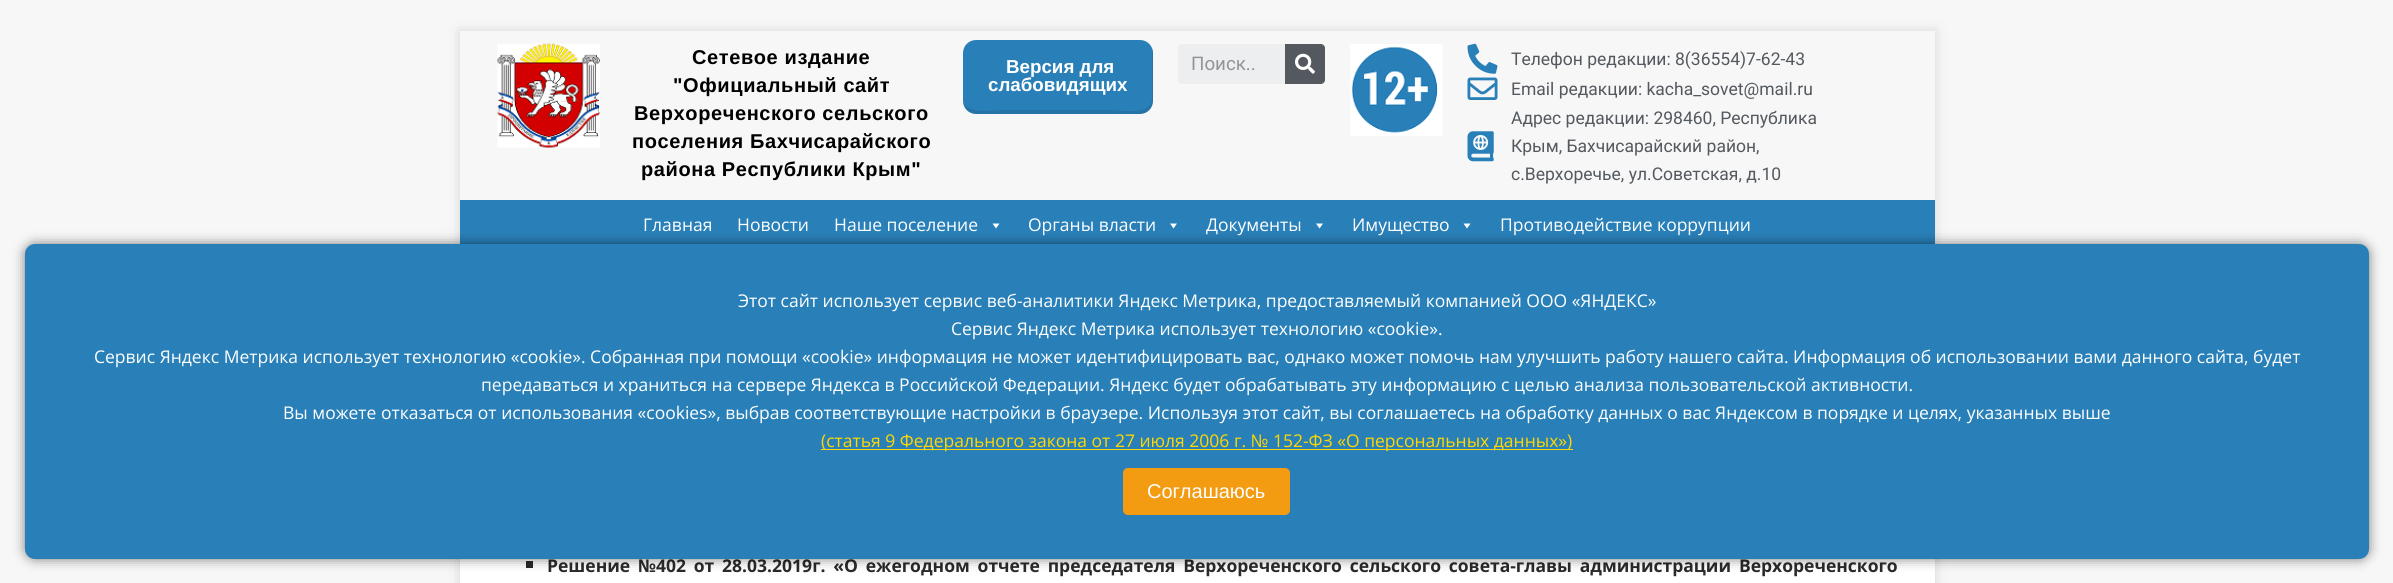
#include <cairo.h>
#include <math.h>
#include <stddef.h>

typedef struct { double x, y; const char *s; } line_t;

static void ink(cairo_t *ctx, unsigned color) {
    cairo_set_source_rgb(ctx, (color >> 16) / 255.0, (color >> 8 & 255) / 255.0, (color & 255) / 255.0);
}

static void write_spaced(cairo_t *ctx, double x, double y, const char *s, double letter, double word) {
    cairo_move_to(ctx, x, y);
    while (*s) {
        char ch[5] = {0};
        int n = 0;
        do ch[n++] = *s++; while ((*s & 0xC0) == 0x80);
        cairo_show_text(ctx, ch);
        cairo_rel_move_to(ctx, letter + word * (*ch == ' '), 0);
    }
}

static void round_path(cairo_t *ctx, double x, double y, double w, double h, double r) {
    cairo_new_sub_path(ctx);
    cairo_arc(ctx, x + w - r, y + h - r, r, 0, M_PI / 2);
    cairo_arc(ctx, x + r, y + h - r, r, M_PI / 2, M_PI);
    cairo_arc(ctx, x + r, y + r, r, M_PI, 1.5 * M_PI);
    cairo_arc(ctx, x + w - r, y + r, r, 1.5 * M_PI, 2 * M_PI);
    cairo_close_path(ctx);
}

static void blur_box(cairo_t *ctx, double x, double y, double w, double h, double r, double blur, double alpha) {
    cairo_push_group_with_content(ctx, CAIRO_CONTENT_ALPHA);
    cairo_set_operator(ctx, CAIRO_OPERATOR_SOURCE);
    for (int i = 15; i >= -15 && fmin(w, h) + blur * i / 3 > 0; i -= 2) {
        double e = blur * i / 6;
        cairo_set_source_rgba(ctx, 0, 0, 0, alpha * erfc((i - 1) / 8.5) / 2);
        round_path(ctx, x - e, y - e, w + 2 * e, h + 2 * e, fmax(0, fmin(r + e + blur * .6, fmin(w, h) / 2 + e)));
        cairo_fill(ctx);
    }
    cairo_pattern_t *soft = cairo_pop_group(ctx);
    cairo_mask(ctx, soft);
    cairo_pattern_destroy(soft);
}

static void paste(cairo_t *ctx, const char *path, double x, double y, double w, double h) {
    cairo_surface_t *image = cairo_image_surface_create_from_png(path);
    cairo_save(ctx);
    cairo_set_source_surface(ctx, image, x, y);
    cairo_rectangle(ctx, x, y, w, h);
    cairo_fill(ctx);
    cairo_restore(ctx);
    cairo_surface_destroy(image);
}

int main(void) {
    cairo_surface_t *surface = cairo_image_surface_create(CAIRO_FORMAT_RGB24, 2393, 583);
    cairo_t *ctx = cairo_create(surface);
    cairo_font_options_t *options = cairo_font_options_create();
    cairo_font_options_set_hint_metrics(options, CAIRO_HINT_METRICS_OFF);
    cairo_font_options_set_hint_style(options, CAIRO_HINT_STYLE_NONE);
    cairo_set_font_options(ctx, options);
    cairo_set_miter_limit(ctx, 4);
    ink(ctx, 0xF7F7F7);
    cairo_paint(ctx);
    cairo_save(ctx);
    cairo_set_fill_rule(ctx, CAIRO_FILL_RULE_EVEN_ODD);
    cairo_new_path(ctx);
    cairo_move_to(ctx, 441, 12);
    cairo_line_to(ctx, 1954, 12);
    cairo_line_to(ctx, 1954, 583);
    cairo_line_to(ctx, 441, 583);
    cairo_close_path(ctx);
    cairo_move_to(ctx, 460, 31);
    cairo_line_to(ctx, 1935, 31);
    cairo_line_to(ctx, 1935, 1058);
    cairo_line_to(ctx, 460, 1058);
    cairo_close_path(ctx);
    cairo_clip(ctx);
    ink(ctx, 0x323232);
    blur_box(ctx, 460, 31, 1475, 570, 0, 6, 0.17);
    cairo_restore(ctx);
    paste(ctx, "media/1.png", 497, 43, 103, 105);
    cairo_select_font_face(ctx, "Liberation Sans", CAIRO_FONT_SLANT_NORMAL, CAIRO_FONT_WEIGHT_BOLD);
    cairo_set_font_size(ctx, 20);
    ink(ctx, 0x000000);
    {
        static const line_t items[] = {
            {692, 64, "Сетевое издание"},
            {673, 92, "\"Официальный сайт"},
            {634, 120, "Верхореченского сельского"},
            {632, 148, "поселения Бахчисарайского"},
            {641, 176, "района Республики Крым\""},
        };
        for (size_t i = 0; i < sizeof items / sizeof *items; i++) {
            write_spaced(ctx, items[i].x, items[i].y, items[i].s, 0.6, 0);
        }
    }
    ink(ctx, 0x2980B9);
    round_path(ctx, 963, 40, 190, 74, 13);
    cairo_fill(ctx);
    cairo_set_source_rgba(ctx, 0, 0, 0, 0.1);
    cairo_new_path(ctx);
    cairo_move_to(ctx, 963, 102);
    cairo_curve_to(ctx, 964, 109, 969, 114, 976, 114);
    cairo_line_to(ctx, 1140, 114);
    cairo_curve_to(ctx, 1147, 114, 1153, 108, 1153, 101);
    cairo_line_to(ctx, 1153, 53);
    cairo_curve_to(ctx, 1153, 51, 1153, 49, 1152, 48);
    cairo_line_to(ctx, 1152, 100);
    cairo_curve_to(ctx, 1149, 116, 1120, 110, 1112, 110);
    cairo_line_to(ctx, 1002, 110);
    cairo_curve_to(ctx, 995, 110, 969, 115, 963, 102);
    cairo_close_path(ctx);
    cairo_fill(ctx);
    cairo_set_font_size(ctx, 18.75);
    ink(ctx, 0xFFFFFF);
    cairo_move_to(ctx, 1006, 73);
    cairo_show_text(ctx, "Версия для");
    cairo_move_to(ctx, 988, 91);
    cairo_show_text(ctx, "слабовидящих");
    ink(ctx, 0xECEEEF);
    round_path(ctx, 1178, 44, 147, 40, 4);
    cairo_fill(ctx);
    cairo_select_font_face(ctx, "Roboto", CAIRO_FONT_SLANT_NORMAL, CAIRO_FONT_WEIGHT_NORMAL);
    ink(ctx, 0x919597);
    cairo_move_to(ctx, 1191, 70);
    cairo_show_text(ctx, "Поиск..");
    ink(ctx, 0x54595F);
    cairo_new_path(ctx);
    cairo_move_to(ctx, 1285, 44);
    cairo_line_to(ctx, 1321, 44);
    cairo_curve_to(ctx, 1323, 44, 1325, 46, 1325, 48);
    cairo_line_to(ctx, 1325, 80);
    cairo_curve_to(ctx, 1325, 82, 1323, 84, 1321, 84);
    cairo_line_to(ctx, 1285, 84);
    cairo_close_path(ctx);
    cairo_fill(ctx);
    paste(ctx, "media/2.png", 1295, 53, 20, 21);
    paste(ctx, "media/3.png", 1350, 44, 93, 92);
    paste(ctx, "media/4.png", 1467, 43, 31, 31);
    cairo_set_font_size(ctx, 17.5);
    cairo_move_to(ctx, 1511, 65);
    cairo_show_text(ctx, "Телефон редакции: 8(36554)7-62-43");
    paste(ctx, "media/5.png", 1467, 77, 31, 23);
    cairo_move_to(ctx, 1511, 95);
    cairo_show_text(ctx, "Email редакции: kacha_sovet@mail.ru");
    paste(ctx, "media/6.png", 1467, 131, 27, 31);
    {
        static const line_t items[] = {
            {1511, 124, "Адрес редакции: 298460, Республика"},
            {1511, 152, "Крым, Бахчисарайский район,"},
            {1511, 180, "с.Верхоречье, ул.Советская, д.10"},
        };
        for (size_t i = 0; i < sizeof items / sizeof *items; i++) {
            cairo_move_to(ctx, items[i].x, items[i].y);
            cairo_show_text(ctx, items[i].s);
        }
    }
    ink(ctx, 0x2980B9);
    cairo_rectangle(ctx, 460, 200, 1475, 44);
    cairo_fill(ctx);
    cairo_select_font_face(ctx, "Open Sans", CAIRO_FONT_SLANT_NORMAL, CAIRO_FONT_WEIGHT_NORMAL);
    ink(ctx, 0xFFFFFF);
    {
        static const line_t items[] = {
            {643, 231, "Главная"},
            {737, 231, "Новости"},
            {834, 231, "Наше поселение"},
        };
        for (size_t i = 0; i < sizeof items / sizeof *items; i++) {
            cairo_move_to(ctx, items[i].x, items[i].y);
            cairo_show_text(ctx, items[i].s);
        }
    }
    cairo_new_path(ctx);
    cairo_move_to(ctx, 999.5, 223.5);
    cairo_line_to(ctx, 996, 228.5);
    cairo_line_to(ctx, 992.5, 223.5);
    cairo_close_path(ctx);
    cairo_fill(ctx);
    cairo_move_to(ctx, 1028, 231);
    cairo_show_text(ctx, "Органы власти");
    cairo_new_path(ctx);
    cairo_move_to(ctx, 1177, 223.5);
    cairo_line_to(ctx, 1173.5, 228.5);
    cairo_line_to(ctx, 1170, 223.5);
    cairo_close_path(ctx);
    cairo_fill(ctx);
    cairo_move_to(ctx, 1206, 231);
    cairo_show_text(ctx, "Документы");
    cairo_new_path(ctx);
    cairo_move_to(ctx, 1323, 223.5);
    cairo_line_to(ctx, 1319.5, 228.5);
    cairo_line_to(ctx, 1316, 223.5);
    cairo_close_path(ctx);
    cairo_fill(ctx);
    cairo_move_to(ctx, 1352, 231);
    cairo_show_text(ctx, "Имущество");
    cairo_new_path(ctx);
    cairo_move_to(ctx, 1470.5, 223.5);
    cairo_line_to(ctx, 1467, 228.5);
    cairo_line_to(ctx, 1463.5, 223.5);
    cairo_close_path(ctx);
    cairo_fill(ctx);
    cairo_move_to(ctx, 1500, 231);
    cairo_show_text(ctx, "Противодействие коррупции");
    cairo_rectangle(ctx, 460, 559, 1475, 24);
    cairo_fill(ctx);
    ink(ctx, 0x2A2A2A);
    cairo_rectangle(ctx, 526, 561, 7, 7);
    cairo_fill(ctx);
    cairo_select_font_face(ctx, "Open Sans", CAIRO_FONT_SLANT_NORMAL, CAIRO_FONT_WEIGHT_BOLD);
    write_spaced(ctx, 547, 572, "Решение №402 от 28.03.2019г. «О ежегодном отчете председателя Верхореченского сельского совета-главы администрации Верхореченского", 0, 3.25);
    ink(ctx, 0x000000);
    blur_box(ctx, 25, 244, 2344, 315, 10, 6, 0.5);
    ink(ctx, 0x2980B9);
    round_path(ctx, 25, 244, 2344, 315, 10);
    cairo_fill(ctx);
    cairo_select_font_face(ctx, "Open Sans", CAIRO_FONT_SLANT_NORMAL, CAIRO_FONT_WEIGHT_NORMAL);
    ink(ctx, 0xFFFFFF);
    {
        static const line_t items[] = {
            {738, 307, "Этот сайт использует сервис веб-аналитики Яндекс Метрика, предоставляемый компанией ООО «ЯНДЕКС»"},
            {951, 335, "Сервис Яндекс Метрика использует технологию «cookie»."},
            {94, 363, "Сервис Яндекс Метрика использует технологию «cookie». Собранная при помощи «cookie» информация не может идентифицировать вас, однако может помочь нам улучшить работу нашего сайта. Информация об использовании вами данного сайта, будет"},
            {481, 391, "передаваться и храниться на сервере Яндекса в Российской Федерации. Яндекс будет обрабатывать эту информацию с целью анализа пользовательской активности."},
            {283, 419, "Вы можете отказаться от использования «cookies», выбрав соответствующие настройки в браузере. Используя этот сайт, вы соглашаетесь на обработку данных о вас Яндексом в порядке и целях, указанных выше"},
        };
        for (size_t i = 0; i < sizeof items / sizeof *items; i++) {
            cairo_move_to(ctx, items[i].x, items[i].y);
            cairo_show_text(ctx, items[i].s);
        }
    }
    ink(ctx, 0xFFD700);
    cairo_rectangle(ctx, 821, 449, 752, 1);
    cairo_fill(ctx);
    cairo_move_to(ctx, 821, 447);
    cairo_show_text(ctx, "(статья 9 Федерального закона от 27 июля 2006 г. № 152-ФЗ «О персональных данных»)");
    ink(ctx, 0xF39C12);
    round_path(ctx, 1123, 468, 167, 47, 5);
    cairo_fill(ctx);
    cairo_select_font_face(ctx, "Liberation Sans", CAIRO_FONT_SLANT_NORMAL, CAIRO_FONT_WEIGHT_NORMAL);
    cairo_set_font_size(ctx, 20);
    ink(ctx, 0xFFFFFF);
    cairo_move_to(ctx, 1147, 498);
    cairo_show_text(ctx, "Соглашаюсь");
    cairo_surface_write_to_png(surface, "image.png");
    cairo_font_options_destroy(options);
    cairo_destroy(ctx);
    cairo_surface_destroy(surface);
    return 0;
}
